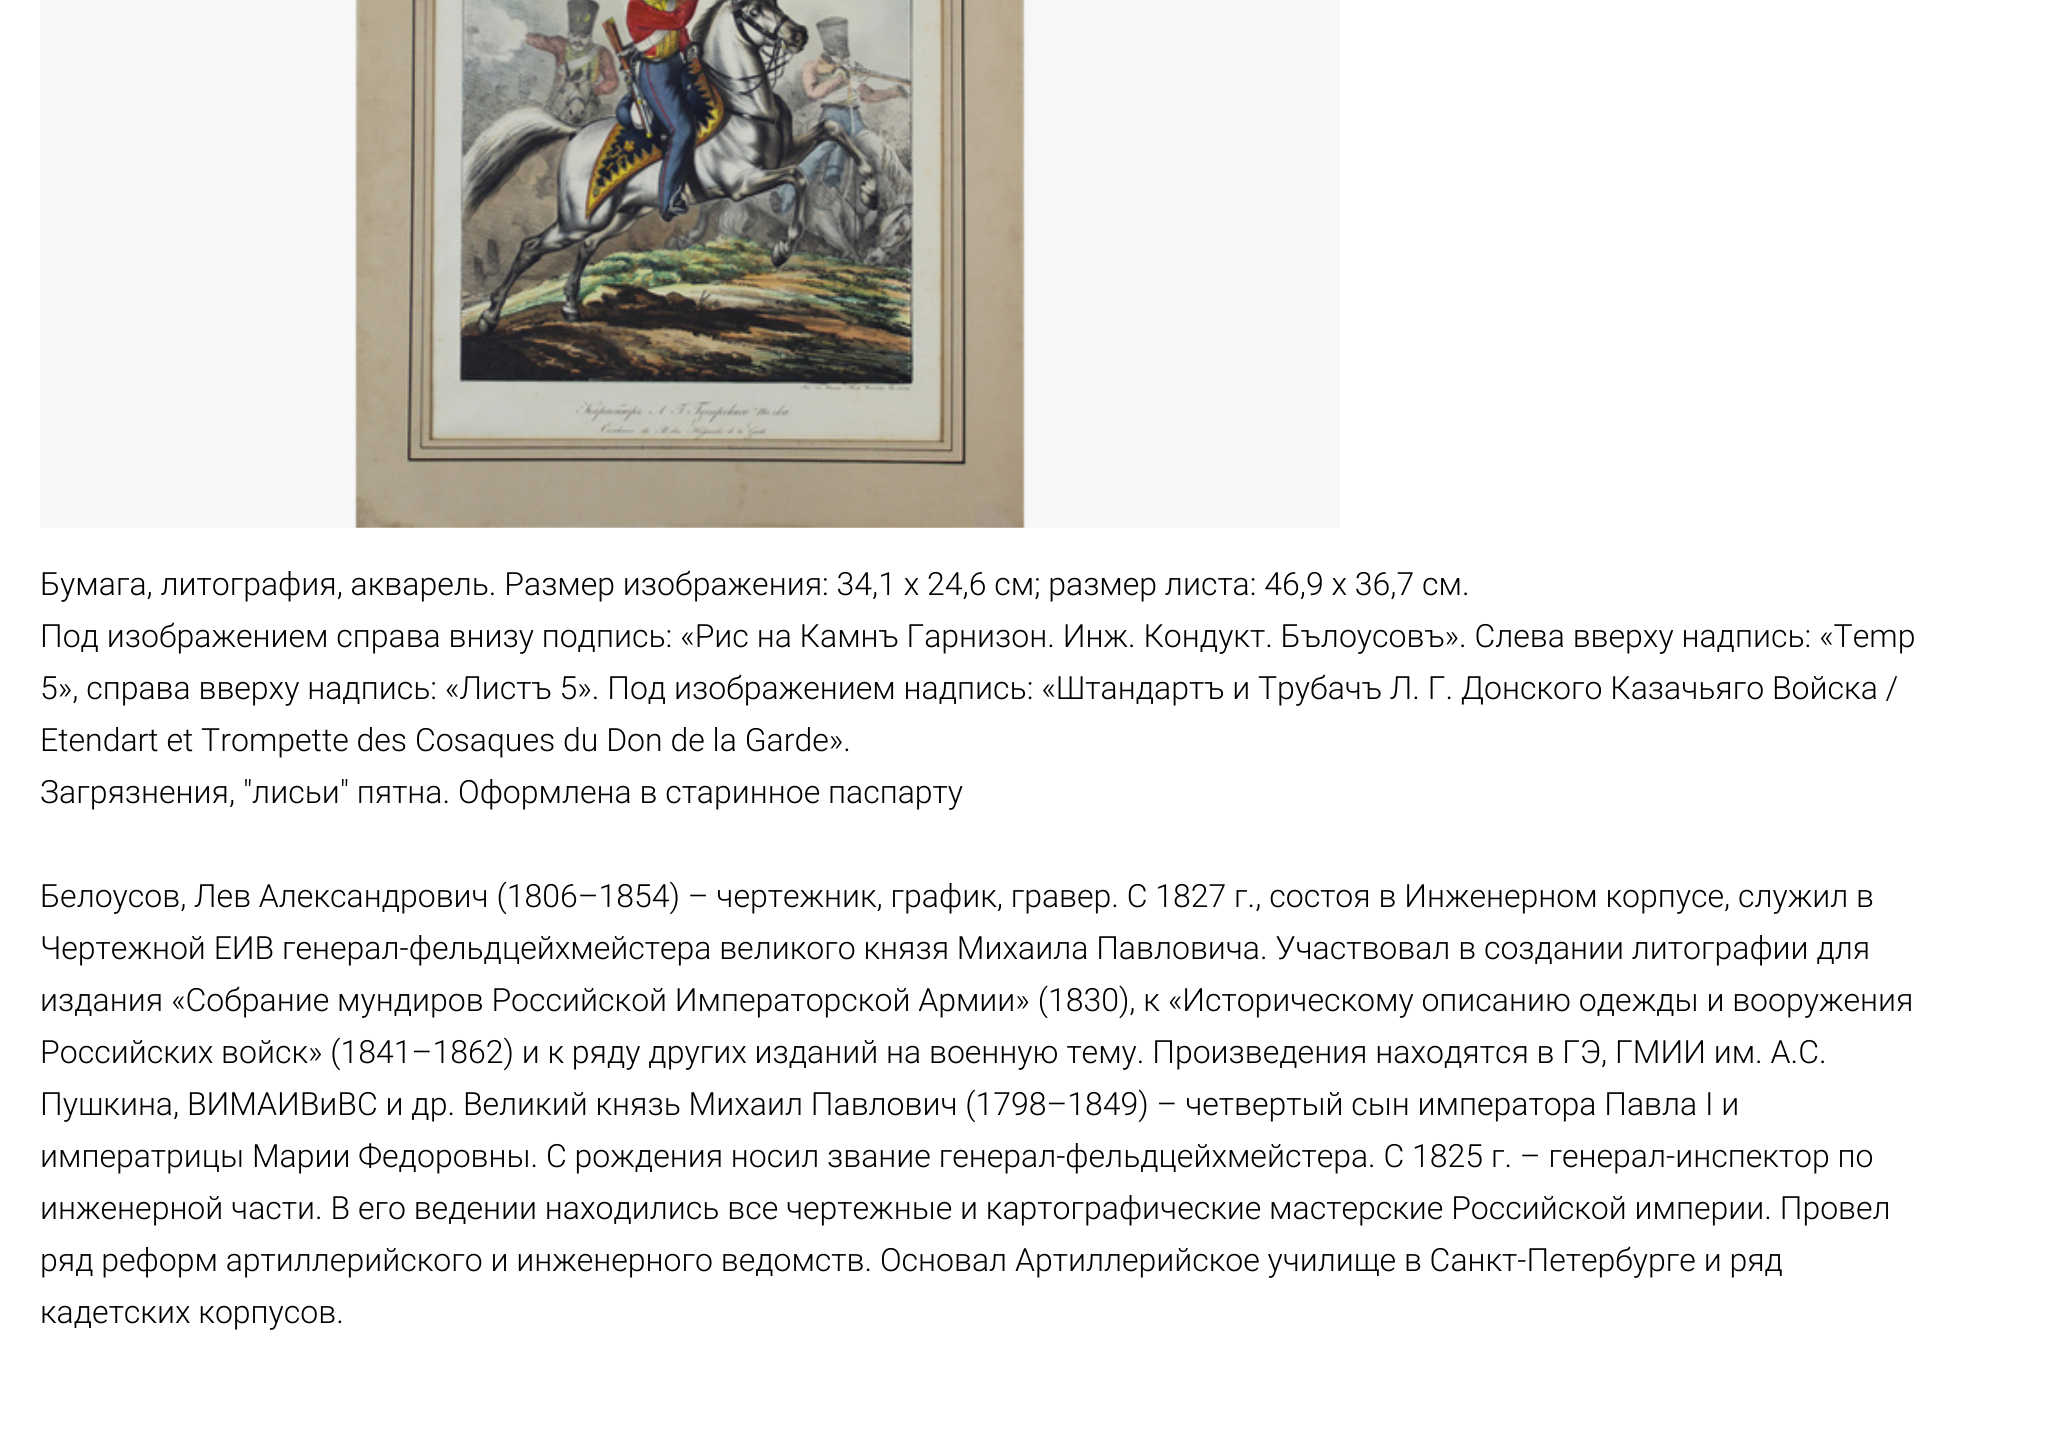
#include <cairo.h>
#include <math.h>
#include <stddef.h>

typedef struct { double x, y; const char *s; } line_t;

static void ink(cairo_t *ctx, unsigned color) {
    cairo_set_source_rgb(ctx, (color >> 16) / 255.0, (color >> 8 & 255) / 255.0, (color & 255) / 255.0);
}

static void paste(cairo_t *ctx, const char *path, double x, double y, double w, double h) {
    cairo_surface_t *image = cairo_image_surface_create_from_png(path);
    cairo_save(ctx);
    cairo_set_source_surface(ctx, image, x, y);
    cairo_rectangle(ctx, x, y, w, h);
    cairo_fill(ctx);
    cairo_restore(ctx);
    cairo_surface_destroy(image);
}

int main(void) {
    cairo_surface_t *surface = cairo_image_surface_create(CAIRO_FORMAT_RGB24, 2057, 1439);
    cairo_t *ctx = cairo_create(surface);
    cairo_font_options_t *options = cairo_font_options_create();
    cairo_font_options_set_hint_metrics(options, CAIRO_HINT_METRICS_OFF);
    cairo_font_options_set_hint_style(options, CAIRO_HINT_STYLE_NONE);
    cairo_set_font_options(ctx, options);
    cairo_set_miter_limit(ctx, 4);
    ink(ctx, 0xFFFFFF);
    cairo_paint(ctx);
    ink(ctx, 0xF7F7F7);
    cairo_rectangle(ctx, 40, 0, 1300, 528);
    cairo_fill(ctx);
    paste(ctx, "media/1.png", 355, 0, 671, 528);
    cairo_select_font_face(ctx, "Roboto Light", CAIRO_FONT_SLANT_NORMAL, CAIRO_FONT_WEIGHT_NORMAL);
    cairo_set_font_size(ctx, 32);
    ink(ctx, 0x000000);
    {
        static const line_t items[] = {
            {40, 595, "Бумага, литография, акварель. Размер изображения: 34,1 х 24,6 см; размер листа: 46,9 х 36,7 см."},
            {40, 647, "Под изображением справа внизу подпись: «Рис на Камнъ Гарнизон. Инж. Кондукт. Бълоусовъ». Слева вверху надпись: «Temp"},
            {40, 699, "5», справа вверху надпись: «Листъ 5». Под изображением надпись: «Штандартъ и Трубачъ Л. Г. Донского Казачьяго Войска /"},
            {40, 751, "Etendart et Trompette des Cosaques du Don de la Garde»."},
            {40, 803, "Загрязнения, \"лисьи\" пятна. Оформлена в старинное паспарту"},
            {40, 907, "Белоусов, Лев Александрович (1806–1854) – чертежник, график, гравер. С 1827 г., состоя в Инженерном корпусе, служил в"},
            {40, 959, "Чертежной ЕИВ генерал-фельдцейхмейстера великого князя Михаила Павловича. Участвовал в создании литографии для"},
            {40, 1011, "издания «Собрание мундиров Российской Императорской Армии» (1830), к «Историческому описанию одежды и вооружения"},
            {40, 1063, "Российских войск» (1841–1862) и к ряду других изданий на военную тему. Произведения находятся в ГЭ, ГМИИ им. А.С."},
            {40, 1115, "Пушкина, ВИМАИВиВС и др. Великий князь Михаил Павлович (1798–1849) – четвертый сын императора Павла I и"},
            {40, 1167, "императрицы Марии Федоровны. С рождения носил звание генерал-фельдцейхмейстера. С 1825 г. – генерал-инспектор по"},
            {40, 1219, "инженерной части. В его ведении находились все чертежные и картографические мастерские Российской империи. Провел"},
            {40, 1271, "ряд реформ артиллерийского и инженерного ведомств. Основал Артиллерийское училище в Санкт-Петербурге и ряд"},
            {40, 1323, "кадетских корпусов."},
        };
        for (size_t i = 0; i < sizeof items / sizeof *items; i++) {
            cairo_move_to(ctx, items[i].x, items[i].y);
            cairo_show_text(ctx, items[i].s);
        }
    }
    cairo_surface_write_to_png(surface, "image.png");
    cairo_font_options_destroy(options);
    cairo_destroy(ctx);
    cairo_surface_destroy(surface);
    return 0;
}
